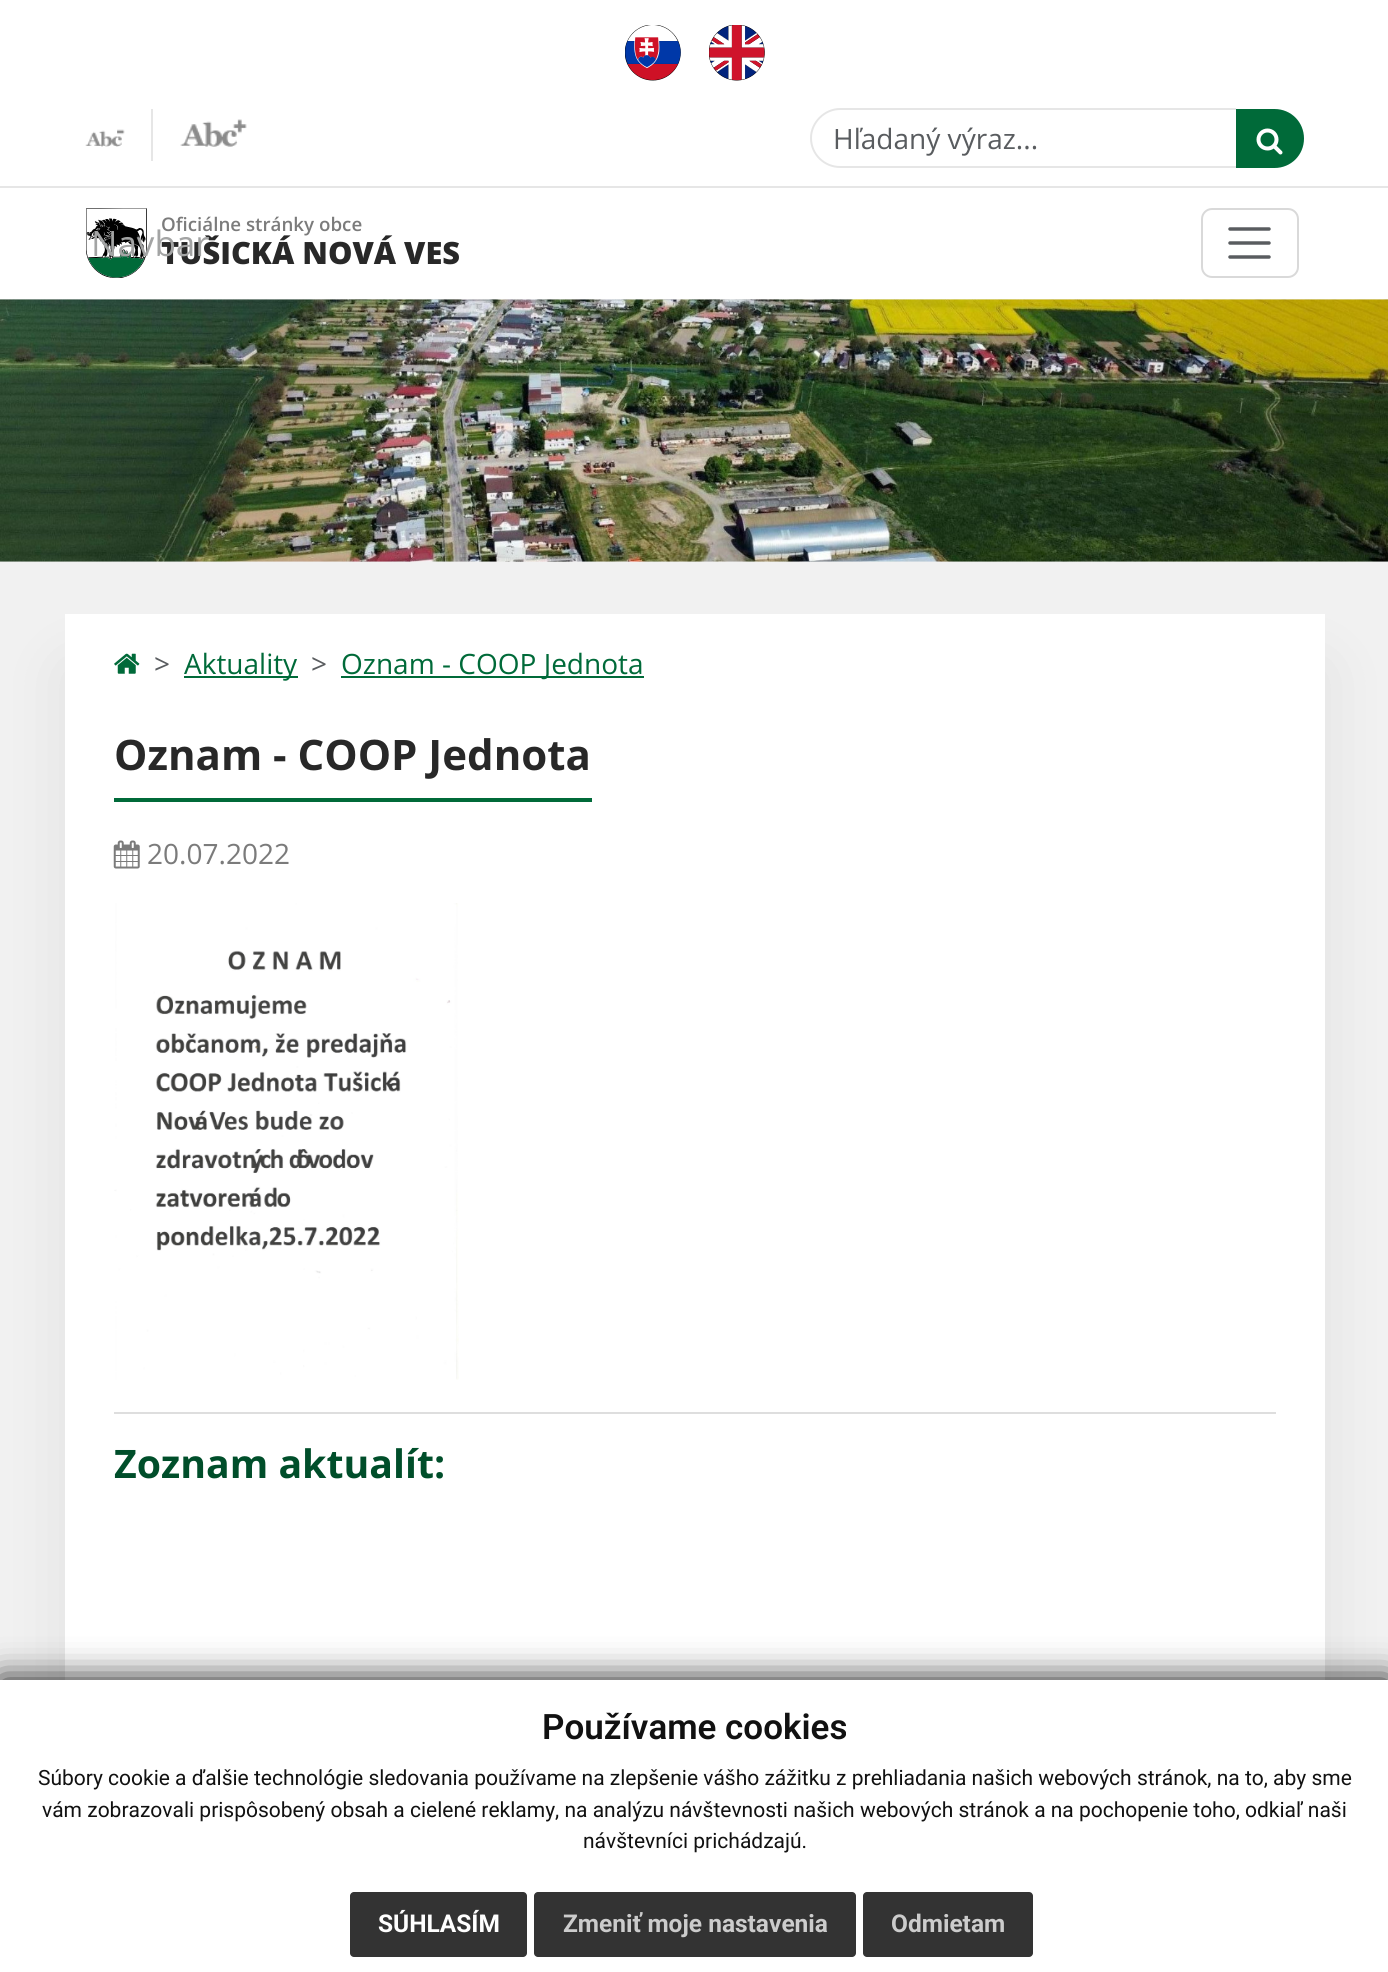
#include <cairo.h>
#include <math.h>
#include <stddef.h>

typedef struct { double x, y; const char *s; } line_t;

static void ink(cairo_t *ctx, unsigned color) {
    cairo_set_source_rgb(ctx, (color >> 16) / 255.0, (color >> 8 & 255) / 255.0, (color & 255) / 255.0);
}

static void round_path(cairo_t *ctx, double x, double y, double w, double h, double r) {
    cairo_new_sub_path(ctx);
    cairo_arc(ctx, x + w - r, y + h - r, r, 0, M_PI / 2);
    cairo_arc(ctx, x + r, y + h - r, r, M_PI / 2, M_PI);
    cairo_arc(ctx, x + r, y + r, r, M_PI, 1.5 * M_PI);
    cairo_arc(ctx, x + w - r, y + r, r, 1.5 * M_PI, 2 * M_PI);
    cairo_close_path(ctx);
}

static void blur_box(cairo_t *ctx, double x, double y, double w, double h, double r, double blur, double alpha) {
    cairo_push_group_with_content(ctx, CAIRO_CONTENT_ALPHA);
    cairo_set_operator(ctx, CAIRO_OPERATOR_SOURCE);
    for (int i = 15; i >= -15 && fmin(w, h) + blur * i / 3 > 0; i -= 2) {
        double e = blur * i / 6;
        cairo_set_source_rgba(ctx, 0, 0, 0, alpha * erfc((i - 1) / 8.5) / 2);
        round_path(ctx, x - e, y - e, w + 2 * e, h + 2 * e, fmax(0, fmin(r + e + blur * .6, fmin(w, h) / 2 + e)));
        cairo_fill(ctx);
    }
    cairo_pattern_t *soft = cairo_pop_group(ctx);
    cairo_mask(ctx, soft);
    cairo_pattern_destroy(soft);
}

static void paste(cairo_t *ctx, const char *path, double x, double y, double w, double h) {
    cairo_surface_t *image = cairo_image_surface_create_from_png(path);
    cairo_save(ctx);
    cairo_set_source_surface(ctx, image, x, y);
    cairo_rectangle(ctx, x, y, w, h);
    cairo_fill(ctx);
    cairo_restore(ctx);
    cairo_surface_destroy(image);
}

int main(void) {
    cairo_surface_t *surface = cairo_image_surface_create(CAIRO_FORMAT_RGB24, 1388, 1972);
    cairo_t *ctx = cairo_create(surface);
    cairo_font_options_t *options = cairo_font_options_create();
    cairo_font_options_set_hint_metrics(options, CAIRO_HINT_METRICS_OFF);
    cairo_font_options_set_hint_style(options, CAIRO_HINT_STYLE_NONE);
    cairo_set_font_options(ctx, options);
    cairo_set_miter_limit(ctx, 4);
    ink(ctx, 0xF1F1F1);
    cairo_paint(ctx);
    ink(ctx, 0xFFFFFF);
    cairo_rectangle(ctx, 0, 0, 1388, 186);
    cairo_fill(ctx);
    paste(ctx, "media/1.png", 625, 25, 56, 56);
    paste(ctx, "media/2.png", 709, 25, 56, 56);
    paste(ctx, "media/3.png", 85, 129, 40, 18);
    ink(ctx, 0xE6E6E6);
    cairo_rectangle(ctx, 151, 109, 2, 52);
    cairo_fill(ctx);
    paste(ctx, "media/4.png", 180, 119, 67, 28);
    cairo_set_fill_rule(ctx, CAIRO_FILL_RULE_EVEN_ODD);
    cairo_new_path(ctx);
    cairo_move_to(ctx, 840, 108);
    cairo_line_to(ctx, 1236, 108);
    cairo_line_to(ctx, 1236, 168);
    cairo_line_to(ctx, 840, 168);
    cairo_curve_to(ctx, 824, 168, 810, 155, 810, 138);
    cairo_curve_to(ctx, 810, 122, 824, 108, 840, 108);
    cairo_close_path(ctx);
    cairo_move_to(ctx, 840, 110);
    cairo_line_to(ctx, 1236, 110);
    cairo_line_to(ctx, 1236, 166);
    cairo_line_to(ctx, 840, 166);
    cairo_curve_to(ctx, 825, 166, 812, 154, 812, 138);
    cairo_curve_to(ctx, 812, 123, 825, 110, 840, 110);
    cairo_close_path(ctx);
    cairo_fill(ctx);
    cairo_select_font_face(ctx, "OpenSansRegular", CAIRO_FONT_SLANT_NORMAL, CAIRO_FONT_WEIGHT_NORMAL);
    cairo_set_font_size(ctx, 28);
    ink(ctx, 0x595C5F);
    cairo_move_to(ctx, 833, 149);
    cairo_show_text(ctx, "Hľadaný výraz...");
    ink(ctx, 0x006A39);
    cairo_new_path(ctx);
    cairo_move_to(ctx, 1236, 109);
    cairo_line_to(ctx, 1274.5, 109);
    cairo_curve_to(ctx, 1291, 109, 1304, 122, 1304, 138.5);
    cairo_curve_to(ctx, 1304, 155, 1291, 168, 1274.5, 168);
    cairo_line_to(ctx, 1236, 168);
    cairo_close_path(ctx);
    cairo_fill(ctx);
    paste(ctx, "media/5.png", 1256, 128, 27, 27);
    ink(ctx, 0xFFFFFF);
    cairo_rectangle(ctx, 0, 188, 1388, 111);
    cairo_fill(ctx);
    ink(ctx, 0xE6E6E6);
    cairo_rectangle(ctx, 0, 186, 1388, 2);
    cairo_fill(ctx);
    paste(ctx, "media/6.png", 86, 208, 61, 70);
    cairo_select_font_face(ctx, "Open Sans ExtraBold", CAIRO_FONT_SLANT_NORMAL, CAIRO_FONT_WEIGHT_NORMAL);
    cairo_set_font_size(ctx, 30.75);
    ink(ctx, 0x282828);
    cairo_move_to(ctx, 161, 264);
    cairo_show_text(ctx, "TUŠICKÁ NOVÁ VES");
    cairo_select_font_face(ctx, "OpenSansRegular", CAIRO_FONT_SLANT_NORMAL, CAIRO_FONT_WEIGHT_NORMAL);
    cairo_set_font_size(ctx, 35);
    ink(ctx, 0xA3A4A4);
    cairo_move_to(ctx, 91, 256);
    cairo_show_text(ctx, "Navbar");
    round_path(ctx, 1202, 209, 96, 68, 10);
    ink(ctx, 0xD9D9D9);
    cairo_stroke(ctx);
    cairo_new_path(ctx);
    cairo_move_to(ctx, 1230, 229);
    cairo_line_to(ctx, 1269, 229);
    cairo_move_to(ctx, 1230, 243);
    cairo_line_to(ctx, 1269, 243);
    cairo_move_to(ctx, 1230, 257);
    cairo_line_to(ctx, 1269, 257);
    ink(ctx, 0x595C5F);
    cairo_set_line_width(ctx, 3.5);
    cairo_set_line_cap(ctx, CAIRO_LINE_CAP_ROUND);
    cairo_stroke(ctx);
    cairo_select_font_face(ctx, "Open Sans SemiBold", CAIRO_FONT_SLANT_NORMAL, CAIRO_FONT_WEIGHT_NORMAL);
    cairo_set_font_size(ctx, 18.75);
    ink(ctx, 0x7B7B7B);
    cairo_move_to(ctx, 161, 231);
    cairo_show_text(ctx, "Oficiálne stránky obce");
    paste(ctx, "media/7.png", 0, 299, 1388, 263);
    ink(ctx, 0x000000);
    blur_box(ctx, 65, 667, 1260, 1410, 0, 35, 0.07);
    ink(ctx, 0xFFFFFF);
    cairo_rectangle(ctx, 65, 614, 1260, 1066);
    cairo_fill(ctx);
    paste(ctx, "media/8.png", 114, 653, 26, 21);
    cairo_select_font_face(ctx, "OpenSansRegular", CAIRO_FONT_SLANT_NORMAL, CAIRO_FONT_WEIGHT_NORMAL);
    cairo_set_font_size(ctx, 28);
    ink(ctx, 0x595C5F);
    cairo_move_to(ctx, 154, 674);
    cairo_show_text(ctx, ">");
    ink(ctx, 0x006A39);
    cairo_rectangle(ctx, 184, 676, 114, 2);
    cairo_fill(ctx);
    cairo_move_to(ctx, 184, 674);
    cairo_show_text(ctx, "Aktuality");
    ink(ctx, 0x595C5F);
    cairo_move_to(ctx, 311, 674);
    cairo_show_text(ctx, ">");
    ink(ctx, 0x006A39);
    cairo_rectangle(ctx, 341, 676, 303, 2);
    cairo_fill(ctx);
    cairo_move_to(ctx, 341, 674);
    cairo_show_text(ctx, "Oznam - COOP Jednota");
    cairo_rectangle(ctx, 114, 798, 478, 4);
    cairo_fill(ctx);
    cairo_select_font_face(ctx, "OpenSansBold", CAIRO_FONT_SLANT_NORMAL, CAIRO_FONT_WEIGHT_BOLD);
    cairo_set_font_size(ctx, 42);
    ink(ctx, 0x282828);
    cairo_move_to(ctx, 114, 770);
    cairo_show_text(ctx, "Oznam - COOP Jednota");
    paste(ctx, "media/9.png", 113, 840, 27, 29);
    cairo_select_font_face(ctx, "OpenSansRegular", CAIRO_FONT_SLANT_NORMAL, CAIRO_FONT_WEIGHT_NORMAL);
    cairo_set_font_size(ctx, 28);
    ink(ctx, 0x7B7B7B);
    cairo_move_to(ctx, 147, 864);
    cairo_show_text(ctx, "20.07.2022");
    paste(ctx, "media/10.png", 114, 903, 345, 477);
    ink(ctx, 0xDEDEDE);
    cairo_rectangle(ctx, 114, 1412, 1162, 2);
    cairo_fill(ctx);
    cairo_select_font_face(ctx, "OpenSansBold", CAIRO_FONT_SLANT_NORMAL, CAIRO_FONT_WEIGHT_BOLD);
    cairo_set_font_size(ctx, 39.25);
    ink(ctx, 0x004E2A);
    cairo_move_to(ctx, 114, 1478);
    cairo_show_text(ctx, "Zoznam aktualít:");
    ink(ctx, 0x111111);
    blur_box(ctx, 0, 1680, 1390, 292, 0, 17.5, 1);
    ink(ctx, 0xFFFFFF);
    cairo_rectangle(ctx, 0, 1680, 1388, 292);
    cairo_fill(ctx);
    cairo_select_font_face(ctx, "Roboto SemiBold", CAIRO_FONT_SLANT_NORMAL, CAIRO_FONT_WEIGHT_NORMAL);
    cairo_set_font_size(ctx, 35);
    ink(ctx, 0x111111);
    cairo_move_to(ctx, 542, 1739);
    cairo_show_text(ctx, "Používame cookies");
    cairo_select_font_face(ctx, "Roboto", CAIRO_FONT_SLANT_NORMAL, CAIRO_FONT_WEIGHT_NORMAL);
    cairo_set_font_size(ctx, 21);
    {
        static const line_t items[] = {
            {38, 1785, "Súbory cookie a ďalšie technológie sledovania používame na zlepšenie vášho zážitku z prehliadania našich webových stránok, na to, aby sme"},
            {42, 1817, "vám zobrazovali prispôsobený obsah a cielené reklamy, na analýzu návštevnosti našich webových stránok a na pochopenie toho, odkiaľ naši"},
            {583, 1848, "návštevníci prichádzajú."},
        };
        for (size_t i = 0; i < sizeof items / sizeof *items; i++) {
            cairo_move_to(ctx, items[i].x, items[i].y);
            cairo_show_text(ctx, items[i].s);
        }
    }
    ink(ctx, 0x333333);
    round_path(ctx, 350, 1892, 177, 65, 4);
    cairo_fill(ctx);
    cairo_select_font_face(ctx, "Roboto", CAIRO_FONT_SLANT_NORMAL, CAIRO_FONT_WEIGHT_BOLD);
    cairo_set_font_size(ctx, 24.5);
    ink(ctx, 0xFFFFFF);
    cairo_move_to(ctx, 378, 1932);
    cairo_show_text(ctx, "SÚHLASÍM");
    ink(ctx, 0x333333);
    round_path(ctx, 534, 1892, 322, 65, 4);
    cairo_fill(ctx);
    ink(ctx, 0xCCCCCC);
    cairo_move_to(ctx, 563, 1932);
    cairo_show_text(ctx, "Zmeniť moje nastavenia");
    ink(ctx, 0x333333);
    round_path(ctx, 863, 1892, 170, 65, 4);
    cairo_fill(ctx);
    ink(ctx, 0xCCCCCC);
    cairo_move_to(ctx, 891, 1932);
    cairo_show_text(ctx, "Odmietam");
    cairo_surface_write_to_png(surface, "image.png");
    cairo_font_options_destroy(options);
    cairo_destroy(ctx);
    cairo_surface_destroy(surface);
    return 0;
}
